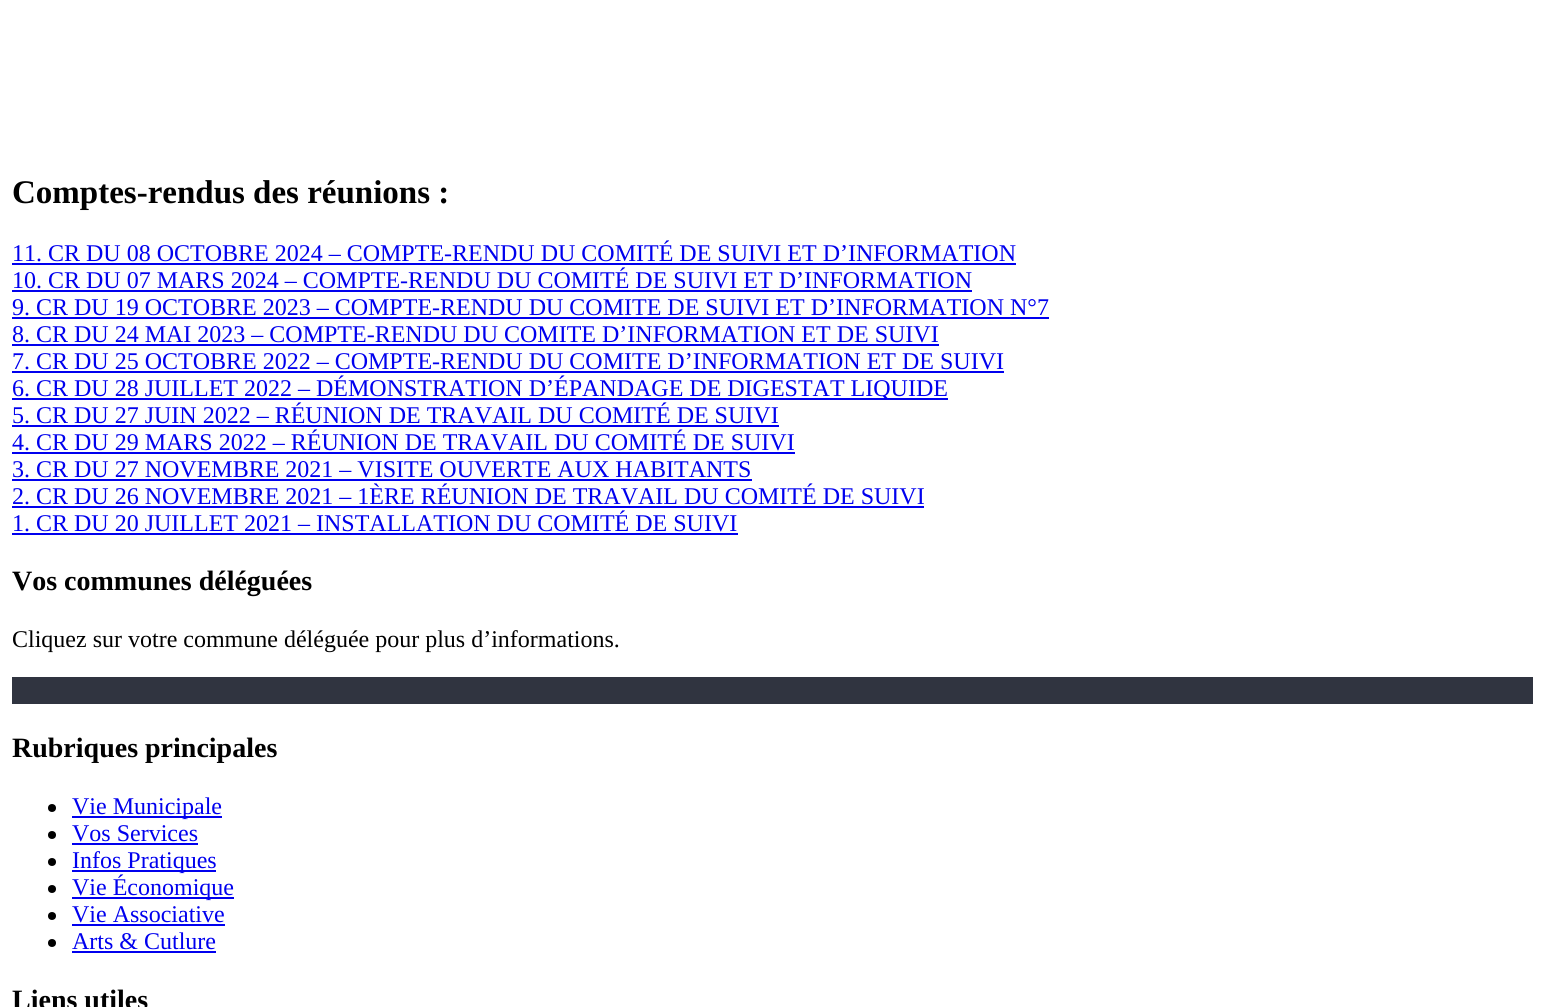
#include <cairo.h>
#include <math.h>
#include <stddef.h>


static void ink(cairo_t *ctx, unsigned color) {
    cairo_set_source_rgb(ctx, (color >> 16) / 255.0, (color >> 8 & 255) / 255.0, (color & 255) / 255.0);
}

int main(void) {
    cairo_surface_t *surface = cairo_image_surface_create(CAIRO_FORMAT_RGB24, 1545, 1007);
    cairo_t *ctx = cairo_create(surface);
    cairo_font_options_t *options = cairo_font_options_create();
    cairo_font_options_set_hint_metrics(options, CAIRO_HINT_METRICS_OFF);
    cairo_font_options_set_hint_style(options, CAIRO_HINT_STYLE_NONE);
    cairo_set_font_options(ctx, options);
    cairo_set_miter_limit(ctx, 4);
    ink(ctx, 0xFFFFFF);
    cairo_paint(ctx);
    cairo_select_font_face(ctx, "Liberation Serif", CAIRO_FONT_SLANT_NORMAL, CAIRO_FONT_WEIGHT_BOLD);
    cairo_set_font_size(ctx, 33);
    ink(ctx, 0x000000);
    cairo_move_to(ctx, 12, 203);
    cairo_show_text(ctx, "Comptes-rendus des réunions :");
    cairo_select_font_face(ctx, "Liberation Serif", CAIRO_FONT_SLANT_NORMAL, CAIRO_FONT_WEIGHT_NORMAL);
    cairo_set_font_size(ctx, 24);
    ink(ctx, 0x0000EE);
    cairo_move_to(ctx, 12, 261);
    cairo_show_text(ctx, "11. CR DU 08 OCTOBRE 2024 – COMPTE-RENDU DU COMITÉ DE SUIVI ET D’INFORMATION");
    cairo_rectangle(ctx, 12, 263, 1004, 2);
    cairo_fill(ctx);
    cairo_move_to(ctx, 12, 288);
    cairo_show_text(ctx, "10. CR DU 07 MARS 2024 – COMPTE-RENDU DU COMITÉ DE SUIVI ET D’INFORMATION");
    cairo_rectangle(ctx, 12, 290, 960, 2);
    cairo_fill(ctx);
    cairo_move_to(ctx, 12, 315);
    cairo_show_text(ctx, "9. CR DU 19 OCTOBRE 2023 – COMPTE-RENDU DU COMITE DE SUIVI ET D’INFORMATION N°7");
    cairo_rectangle(ctx, 12, 317, 1037, 2);
    cairo_fill(ctx);
    cairo_move_to(ctx, 12, 342);
    cairo_show_text(ctx, "8. CR DU 24 MAI 2023 – COMPTE-RENDU DU COMITE D’INFORMATION ET DE SUIVI");
    cairo_rectangle(ctx, 12, 344, 927, 2);
    cairo_fill(ctx);
    cairo_move_to(ctx, 12, 369);
    cairo_show_text(ctx, "7. CR DU 25 OCTOBRE 2022 – COMPTE-RENDU DU COMITE D’INFORMATION ET DE SUIVI");
    cairo_rectangle(ctx, 12, 371, 992, 2);
    cairo_fill(ctx);
    cairo_rectangle(ctx, 12, 398, 936, 2);
    cairo_fill(ctx);
    cairo_move_to(ctx, 12, 396);
    cairo_show_text(ctx, "6. CR DU 28 JUILLET 2022 – DÉMONSTRATION D’ÉPANDAGE DE DIGESTAT LIQUIDE");
    cairo_move_to(ctx, 12, 423);
    cairo_show_text(ctx, "5. CR DU 27 JUIN 2022 – RÉUNION DE TRAVAIL DU COMITÉ DE SUIVI");
    cairo_rectangle(ctx, 12, 425, 767, 2);
    cairo_fill(ctx);
    cairo_move_to(ctx, 12, 450);
    cairo_show_text(ctx, "4. CR DU 29 MARS 2022 – RÉUNION DE TRAVAIL DU COMITÉ DE SUIVI");
    cairo_rectangle(ctx, 12, 452, 783, 2);
    cairo_fill(ctx);
    cairo_move_to(ctx, 12, 477);
    cairo_show_text(ctx, "3. CR DU 27 NOVEMBRE 2021 – VISITE OUVERTE AUX HABITANTS");
    cairo_rectangle(ctx, 12, 479, 740, 2);
    cairo_fill(ctx);
    cairo_move_to(ctx, 12, 504);
    cairo_show_text(ctx, "2. CR DU 26 NOVEMBRE 2021 – 1ÈRE RÉUNION DE TRAVAIL DU COMITÉ DE SUIVI");
    cairo_rectangle(ctx, 12, 506, 912, 2);
    cairo_fill(ctx);
    cairo_move_to(ctx, 12, 531);
    cairo_show_text(ctx, "1. CR DU 20 JUILLET 2021 – INSTALLATION DU COMITÉ DE SUIVI");
    cairo_rectangle(ctx, 12, 533, 726, 2);
    cairo_fill(ctx);
    cairo_select_font_face(ctx, "Liberation Serif", CAIRO_FONT_SLANT_NORMAL, CAIRO_FONT_WEIGHT_BOLD);
    cairo_set_font_size(ctx, 28);
    ink(ctx, 0x000000);
    cairo_move_to(ctx, 12, 590);
    cairo_show_text(ctx, "Vos communes déléguées");
    cairo_select_font_face(ctx, "Liberation Serif", CAIRO_FONT_SLANT_NORMAL, CAIRO_FONT_WEIGHT_NORMAL);
    cairo_set_font_size(ctx, 24);
    cairo_move_to(ctx, 12, 647);
    cairo_show_text(ctx, "Cliquez sur votre commune déléguée pour plus d’informations.");
    ink(ctx, 0x303440);
    cairo_rectangle(ctx, 12, 677, 1521, 27);
    cairo_fill(ctx);
    cairo_select_font_face(ctx, "Liberation Serif", CAIRO_FONT_SLANT_NORMAL, CAIRO_FONT_WEIGHT_BOLD);
    cairo_set_font_size(ctx, 28);
    ink(ctx, 0x000000);
    cairo_move_to(ctx, 12, 757);
    cairo_show_text(ctx, "Rubriques principales");
    cairo_new_path(ctx);
    cairo_arc(ctx, 52, 808, 4, 0, 2 * M_PI);
    cairo_fill(ctx);
    ink(ctx, 0x0000EE);
    cairo_rectangle(ctx, 72, 816, 150, 2);
    cairo_fill(ctx);
    cairo_select_font_face(ctx, "Liberation Serif", CAIRO_FONT_SLANT_NORMAL, CAIRO_FONT_WEIGHT_NORMAL);
    cairo_set_font_size(ctx, 24);
    cairo_move_to(ctx, 72, 814);
    cairo_show_text(ctx, "Vie Municipale");
    ink(ctx, 0x000000);
    cairo_new_path(ctx);
    cairo_arc(ctx, 52, 835, 4, 0, 2 * M_PI);
    cairo_fill(ctx);
    ink(ctx, 0x0000EE);
    cairo_move_to(ctx, 72, 841);
    cairo_show_text(ctx, "Vos Services");
    cairo_rectangle(ctx, 72, 843, 126, 2);
    cairo_fill(ctx);
    ink(ctx, 0x000000);
    cairo_arc(ctx, 52, 862, 4, 0, 2 * M_PI);
    cairo_fill(ctx);
    ink(ctx, 0x0000EE);
    cairo_rectangle(ctx, 72, 870, 144, 2);
    cairo_fill(ctx);
    cairo_move_to(ctx, 72, 868);
    cairo_show_text(ctx, "Infos Pratiques");
    ink(ctx, 0x000000);
    cairo_new_path(ctx);
    cairo_arc(ctx, 52, 889, 4, 0, 2 * M_PI);
    cairo_fill(ctx);
    ink(ctx, 0x0000EE);
    cairo_rectangle(ctx, 72, 897, 162, 2);
    cairo_fill(ctx);
    cairo_move_to(ctx, 72, 895);
    cairo_show_text(ctx, "Vie Économique");
    ink(ctx, 0x000000);
    cairo_new_path(ctx);
    cairo_arc(ctx, 52, 916, 4, 0, 2 * M_PI);
    cairo_fill(ctx);
    ink(ctx, 0x0000EE);
    cairo_move_to(ctx, 72, 922);
    cairo_show_text(ctx, "Vie Associative");
    cairo_rectangle(ctx, 72, 924, 153, 2);
    cairo_fill(ctx);
    ink(ctx, 0x000000);
    cairo_arc(ctx, 52, 943, 4, 0, 2 * M_PI);
    cairo_fill(ctx);
    ink(ctx, 0x0000EE);
    cairo_move_to(ctx, 72, 949);
    cairo_show_text(ctx, "Arts & Cutlure");
    cairo_rectangle(ctx, 72, 951, 144, 2);
    cairo_fill(ctx);
    cairo_select_font_face(ctx, "Liberation Serif", CAIRO_FONT_SLANT_NORMAL, CAIRO_FONT_WEIGHT_BOLD);
    cairo_set_font_size(ctx, 28);
    ink(ctx, 0x000000);
    cairo_move_to(ctx, 12, 1009);
    cairo_show_text(ctx, "Liens utiles");
    cairo_surface_write_to_png(surface, "image.png");
    cairo_font_options_destroy(options);
    cairo_destroy(ctx);
    cairo_surface_destroy(surface);
    return 0;
}
